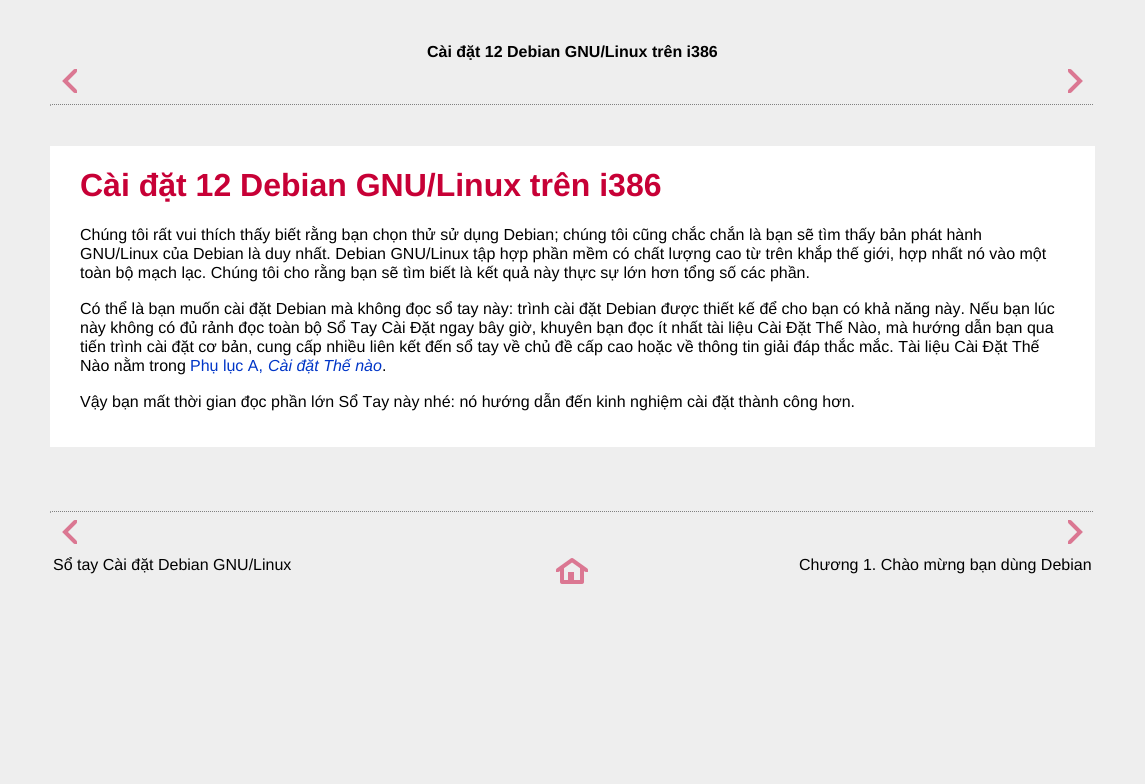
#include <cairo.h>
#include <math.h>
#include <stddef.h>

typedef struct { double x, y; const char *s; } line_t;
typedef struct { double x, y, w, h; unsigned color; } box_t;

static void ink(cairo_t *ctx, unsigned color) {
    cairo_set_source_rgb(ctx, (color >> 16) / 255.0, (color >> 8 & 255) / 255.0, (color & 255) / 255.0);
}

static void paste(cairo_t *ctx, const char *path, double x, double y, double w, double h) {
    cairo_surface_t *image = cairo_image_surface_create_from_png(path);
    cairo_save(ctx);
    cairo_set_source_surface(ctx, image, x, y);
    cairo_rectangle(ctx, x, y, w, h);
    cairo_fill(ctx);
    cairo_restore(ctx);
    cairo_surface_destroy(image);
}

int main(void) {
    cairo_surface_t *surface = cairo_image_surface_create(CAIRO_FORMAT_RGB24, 1145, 784);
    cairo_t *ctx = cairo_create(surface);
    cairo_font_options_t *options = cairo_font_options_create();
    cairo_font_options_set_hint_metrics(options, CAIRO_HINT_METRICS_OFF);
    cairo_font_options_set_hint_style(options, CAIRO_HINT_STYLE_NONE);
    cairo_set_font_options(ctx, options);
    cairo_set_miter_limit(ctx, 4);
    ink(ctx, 0xEEEEEE);
    cairo_paint(ctx);
    cairo_select_font_face(ctx, "Liberation Sans", CAIRO_FONT_SLANT_NORMAL, CAIRO_FONT_WEIGHT_BOLD);
    cairo_set_font_size(ctx, 16);
    ink(ctx, 0x000000);
    cairo_move_to(ctx, 427, 57);
    cairo_show_text(ctx, "Cài đặt 12 Debian GNU/Linux trên i386");
    paste(ctx, "media/1.png", 62, 69, 15, 24);
    paste(ctx, "media/2.png", 1068, 69, 15, 24);
    cairo_new_path(ctx);
    cairo_move_to(ctx, 50, 104.5);
    cairo_line_to(ctx, 1095, 104.5);
    ink(ctx, 0x808080);
    cairo_set_line_width(ctx, 1);
    cairo_set_dash(ctx, (double[]){1, 1}, 2, 0);
    cairo_stroke(ctx);
    {
        static const box_t items[] = {
            {1094, 104, 1, 2, 0xEEEEEE},
            {50, 104, 1, 2, 0x9F9F9F},
            {50, 146, 1045, 301, 0xFFFFFF},
        };
        for (size_t i = 0; i < sizeof items / sizeof *items; i++) {
            ink(ctx, items[i].color);
            cairo_rectangle(ctx, items[i].x, items[i].y, items[i].w, items[i].h);
            cairo_fill(ctx);
        }
    }
    cairo_set_font_size(ctx, 32);
    ink(ctx, 0xC70036);
    cairo_move_to(ctx, 80, 196);
    cairo_show_text(ctx, "Cài đặt 12 Debian GNU/Linux trên i386");
    cairo_select_font_face(ctx, "Liberation Sans", CAIRO_FONT_SLANT_NORMAL, CAIRO_FONT_WEIGHT_NORMAL);
    cairo_set_font_size(ctx, 16);
    ink(ctx, 0x000000);
    {
        static const line_t items[] = {
            {80, 240, "Chúng tôi rất vui thích thấy biết rằng bạn chọn thử sử dụng Debian; chúng tôi cũng chắc chắn là bạn sẽ tìm thấy bản phát hành"},
            {80, 259, "GNU/Linux của Debian là duy nhất. Debian GNU/Linux tập hợp phần mềm có chất lượng cao từ trên khắp thế giới, hợp nhất nó vào một"},
            {80, 278, "toàn bộ mạch lạc. Chúng tôi cho rằng bạn sẽ tìm biết là kết quả này thực sự lớn hơn tổng số các phần."},
            {80, 314, "Có thể là bạn muốn cài đặt Debian mà không đọc sổ tay này: trình cài đặt Debian được thiết kế để cho bạn có khả năng này. Nếu bạn lúc"},
            {80, 333, "này không có đủ rảnh đọc toàn bộ Sổ Tay Cài Đặt ngay bây giờ, khuyên bạn đọc ít nhất tài liệu Cài Đặt Thế Nào, mà hướng dẫn bạn qua"},
            {80, 352, "tiến trình cài đặt cơ bản, cung cấp nhiều liên kết đến sổ tay về chủ đề cấp cao hoặc về thông tin giải đáp thắc mắc. Tài liệu Cài Đặt Thế"},
            {80, 371, "Nào nằm trong"},
        };
        for (size_t i = 0; i < sizeof items / sizeof *items; i++) {
            cairo_move_to(ctx, items[i].x, items[i].y);
            cairo_show_text(ctx, items[i].s);
        }
    }
    ink(ctx, 0x0035C7);
    cairo_move_to(ctx, 190, 371);
    cairo_show_text(ctx, "Phụ lục A,");
    cairo_select_font_face(ctx, "Liberation Sans", CAIRO_FONT_SLANT_ITALIC, CAIRO_FONT_WEIGHT_NORMAL);
    cairo_move_to(ctx, 268, 371);
    cairo_show_text(ctx, "Cài đặt Thế nào");
    cairo_select_font_face(ctx, "Liberation Sans", CAIRO_FONT_SLANT_NORMAL, CAIRO_FONT_WEIGHT_NORMAL);
    ink(ctx, 0x000000);
    cairo_move_to(ctx, 382, 371);
    cairo_show_text(ctx, ".");
    cairo_move_to(ctx, 80, 407);
    cairo_show_text(ctx, "Vậy bạn mất thời gian đọc phần lớn Sổ Tay này nhé: nó hướng dẫn đến kinh nghiệm cài đặt thành công hơn.");
    cairo_new_path(ctx);
    cairo_move_to(ctx, 50, 511.5);
    cairo_line_to(ctx, 1095, 511.5);
    ink(ctx, 0x808080);
    cairo_stroke(ctx);
    ink(ctx, 0xEEEEEE);
    cairo_rectangle(ctx, 1094, 511, 1, 2);
    cairo_fill(ctx);
    ink(ctx, 0x9F9F9F);
    cairo_rectangle(ctx, 50, 511, 1, 2);
    cairo_fill(ctx);
    paste(ctx, "media/1.png", 62, 520, 15, 24);
    paste(ctx, "media/2.png", 1068, 520, 15, 24);
    ink(ctx, 0x000000);
    cairo_move_to(ctx, 53, 570);
    cairo_show_text(ctx, "Sổ tay Cài đặt Debian GNU/Linux");
    paste(ctx, "media/3.png", 556, 558, 32, 26);
    cairo_move_to(ctx, 799, 570);
    cairo_show_text(ctx, "Chương 1. Chào mừng bạn dùng Debian");
    cairo_surface_write_to_png(surface, "image.png");
    cairo_font_options_destroy(options);
    cairo_destroy(ctx);
    cairo_surface_destroy(surface);
    return 0;
}
